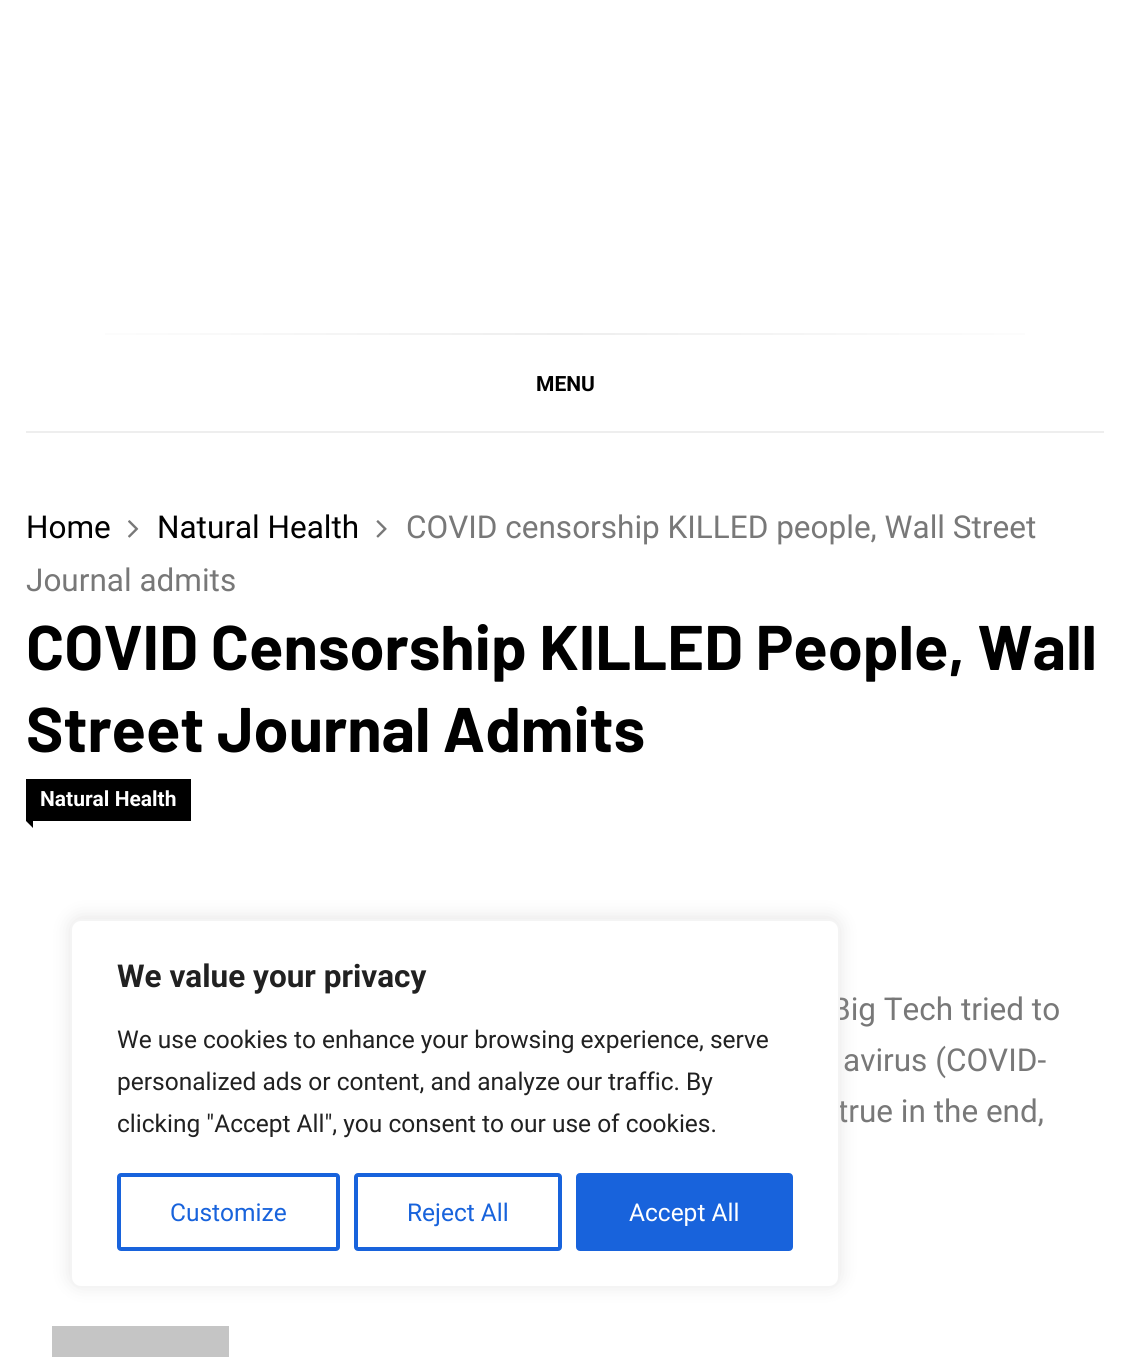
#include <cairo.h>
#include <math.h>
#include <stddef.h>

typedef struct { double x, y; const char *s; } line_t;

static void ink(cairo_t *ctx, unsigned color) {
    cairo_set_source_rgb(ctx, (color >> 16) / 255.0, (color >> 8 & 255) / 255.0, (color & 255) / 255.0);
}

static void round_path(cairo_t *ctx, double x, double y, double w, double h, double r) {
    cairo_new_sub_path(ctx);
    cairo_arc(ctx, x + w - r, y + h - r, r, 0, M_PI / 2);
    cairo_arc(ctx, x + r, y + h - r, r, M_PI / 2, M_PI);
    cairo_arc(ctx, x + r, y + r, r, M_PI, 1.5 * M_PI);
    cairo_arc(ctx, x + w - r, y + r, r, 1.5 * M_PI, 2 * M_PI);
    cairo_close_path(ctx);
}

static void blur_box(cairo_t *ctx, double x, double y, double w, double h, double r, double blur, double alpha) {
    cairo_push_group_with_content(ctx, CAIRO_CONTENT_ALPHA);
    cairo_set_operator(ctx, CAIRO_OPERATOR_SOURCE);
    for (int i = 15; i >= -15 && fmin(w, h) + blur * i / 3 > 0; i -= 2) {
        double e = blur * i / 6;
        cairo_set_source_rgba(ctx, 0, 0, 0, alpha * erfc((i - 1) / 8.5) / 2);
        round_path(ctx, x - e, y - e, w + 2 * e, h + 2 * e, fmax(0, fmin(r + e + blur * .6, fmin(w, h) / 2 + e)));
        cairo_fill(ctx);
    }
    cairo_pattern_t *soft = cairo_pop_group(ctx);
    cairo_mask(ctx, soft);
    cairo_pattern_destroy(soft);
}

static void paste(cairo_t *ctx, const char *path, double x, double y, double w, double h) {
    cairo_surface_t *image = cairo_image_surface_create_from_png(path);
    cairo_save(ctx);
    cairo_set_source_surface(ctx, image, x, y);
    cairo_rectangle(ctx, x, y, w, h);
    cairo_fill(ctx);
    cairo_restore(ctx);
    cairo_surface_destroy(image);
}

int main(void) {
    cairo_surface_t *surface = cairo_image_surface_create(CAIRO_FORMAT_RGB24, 1129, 1357);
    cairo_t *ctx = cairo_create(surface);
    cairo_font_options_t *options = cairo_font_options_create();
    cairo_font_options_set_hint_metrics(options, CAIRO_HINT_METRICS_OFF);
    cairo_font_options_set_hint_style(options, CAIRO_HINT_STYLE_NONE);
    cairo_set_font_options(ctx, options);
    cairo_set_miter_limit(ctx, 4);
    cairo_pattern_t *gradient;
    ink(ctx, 0xFFFFFF);
    cairo_paint(ctx);
    ink(ctx, 0xEEEEEE);
    cairo_rectangle(ctx, 26, 431, 1078, 2);
    cairo_fill(ctx);
    gradient = cairo_pattern_create_linear(1104, 333, 26, 333);
    cairo_pattern_add_color_stop_rgba(gradient, 0, 1, 1, 1, 1);
    cairo_pattern_add_color_stop_rgba(gradient, 0.5, 0.933, 0.933, 0.933, 1);
    cairo_pattern_add_color_stop_rgba(gradient, 1, 1, 1, 1, 1);
    cairo_set_source(ctx, gradient);
    cairo_pattern_destroy(gradient);
    cairo_rectangle(ctx, 105, 333, 920, 2);
    cairo_fill(ctx);
    cairo_select_font_face(ctx, "Roboto", CAIRO_FONT_SLANT_NORMAL, CAIRO_FONT_WEIGHT_BOLD);
    cairo_set_font_size(ctx, 21);
    ink(ctx, 0x000000);
    cairo_move_to(ctx, 536, 391);
    cairo_show_text(ctx, "MENU");
    cairo_select_font_face(ctx, "Roboto", CAIRO_FONT_SLANT_NORMAL, CAIRO_FONT_WEIGHT_NORMAL);
    cairo_set_font_size(ctx, 31.5);
    cairo_move_to(ctx, 26, 538);
    cairo_show_text(ctx, "Home");
    paste(ctx, "media/1.png", 128, 520, 11, 18);
    cairo_move_to(ctx, 157, 538);
    cairo_show_text(ctx, "Natural Health");
    paste(ctx, "media/2.png", 376, 520, 11, 18);
    ink(ctx, 0x787878);
    cairo_move_to(ctx, 406, 538);
    cairo_show_text(ctx, "COVID censorship KILLED people, Wall Street");
    cairo_move_to(ctx, 26, 591);
    cairo_show_text(ctx, "Journal admits");
    cairo_select_font_face(ctx, "Barlow", CAIRO_FONT_SLANT_NORMAL, CAIRO_FONT_WEIGHT_BOLD);
    cairo_set_font_size(ctx, 63);
    ink(ctx, 0x000000);
    cairo_move_to(ctx, 26, 670);
    cairo_show_text(ctx, "COVID Censorship KILLED People, Wall");
    cairo_move_to(ctx, 26, 752);
    cairo_show_text(ctx, "Street Journal Admits");
    cairo_rectangle(ctx, 26, 779, 165, 42);
    cairo_fill(ctx);
    cairo_select_font_face(ctx, "Roboto", CAIRO_FONT_SLANT_NORMAL, CAIRO_FONT_WEIGHT_BOLD);
    cairo_set_font_size(ctx, 21);
    ink(ctx, 0xFFFFFF);
    cairo_move_to(ctx, 40, 806);
    cairo_show_text(ctx, "Natural Health");
    ink(ctx, 0x000000);
    cairo_new_path(ctx);
    cairo_move_to(ctx, 33, 821);
    cairo_line_to(ctx, 33, 828);
    cairo_line_to(ctx, 26, 821);
    cairo_close_path(ctx);
    cairo_fill(ctx);
    cairo_select_font_face(ctx, "Roboto", CAIRO_FONT_SLANT_NORMAL, CAIRO_FONT_WEIGHT_NORMAL);
    cairo_set_font_size(ctx, 31.5);
    ink(ctx, 0x787878);
    {
        static const line_t items[] = {
            {831, 1020, "Big Tech tried to"},
            {843, 1071, "avirus (COVID-"},
            {838, 1122, "true in the end,"},
        };
        for (size_t i = 0; i < sizeof items / sizeof *items; i++) {
            cairo_move_to(ctx, items[i].x, items[i].y);
            cairo_show_text(ctx, items[i].s);
        }
    }
    ink(ctx, 0xC5C5C5);
    cairo_rectangle(ctx, 52, 1326, 177, 31);
    cairo_fill(ctx);
    ink(ctx, 0xACABAB);
    blur_box(ctx, 70, 917, 770, 369, 11, 9, 0.3);
    ink(ctx, 0xFFFFFF);
    round_path(ctx, 71, 920, 768, 367, 10);
    cairo_fill_preserve(ctx);
    ink(ctx, 0xF4F4F4);
    cairo_stroke(ctx);
    cairo_select_font_face(ctx, "Roboto", CAIRO_FONT_SLANT_NORMAL, CAIRO_FONT_WEIGHT_BOLD);
    ink(ctx, 0x212121);
    cairo_move_to(ctx, 117, 987);
    cairo_show_text(ctx, "We value your privacy");
    cairo_select_font_face(ctx, "Roboto", CAIRO_FONT_SLANT_NORMAL, CAIRO_FONT_WEIGHT_NORMAL);
    cairo_set_font_size(ctx, 24.5);
    {
        static const line_t items[] = {
            {117, 1048, "We use cookies to enhance your browsing experience, serve"},
            {117, 1090, "personalized ads or content, and analyze our traffic. By"},
            {117, 1132, "clicking \"Accept All\", you consent to our use of cookies."},
        };
        for (size_t i = 0; i < sizeof items / sizeof *items; i++) {
            cairo_move_to(ctx, items[i].x, items[i].y);
            cairo_show_text(ctx, items[i].s);
        }
    }
    round_path(ctx, 119, 1175, 219, 74, 2);
    ink(ctx, 0x1863DC);
    cairo_set_line_width(ctx, 4);
    cairo_stroke(ctx);
    cairo_move_to(ctx, 170, 1221);
    cairo_show_text(ctx, "Customize");
    round_path(ctx, 356, 1175, 204, 74, 2);
    cairo_stroke(ctx);
    cairo_move_to(ctx, 407, 1221);
    cairo_show_text(ctx, "Reject All");
    round_path(ctx, 578, 1175, 213, 74, 2);
    cairo_fill_preserve(ctx);
    cairo_stroke(ctx);
    ink(ctx, 0xFFFFFF);
    cairo_move_to(ctx, 629, 1221);
    cairo_show_text(ctx, "Accept All");
    cairo_surface_write_to_png(surface, "image.png");
    cairo_font_options_destroy(options);
    cairo_destroy(ctx);
    cairo_surface_destroy(surface);
    return 0;
}
